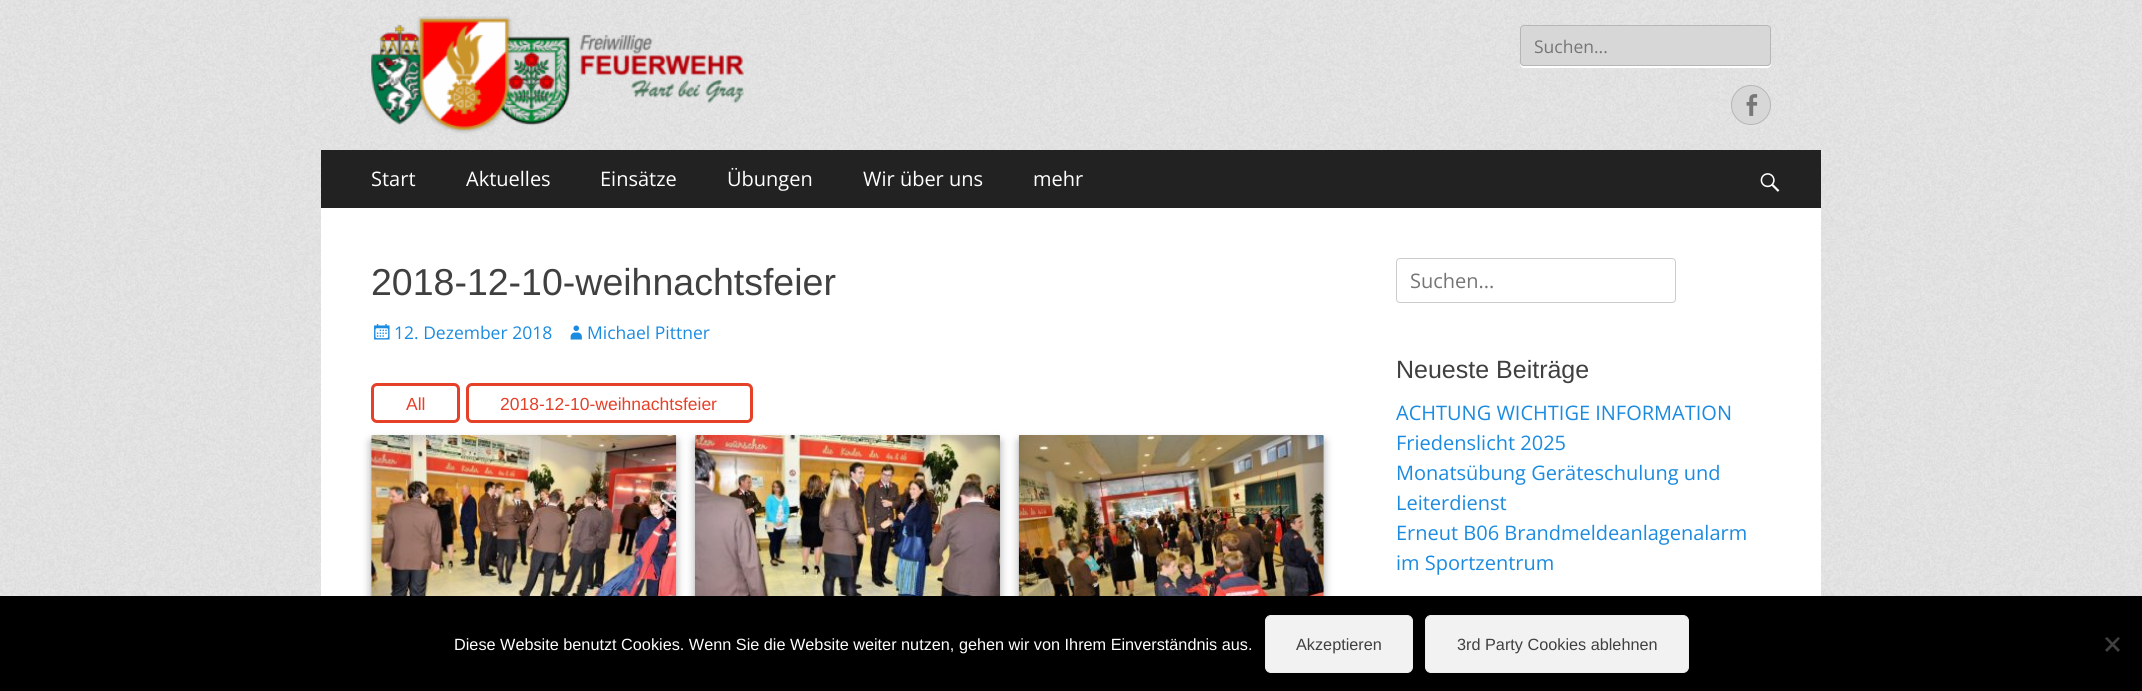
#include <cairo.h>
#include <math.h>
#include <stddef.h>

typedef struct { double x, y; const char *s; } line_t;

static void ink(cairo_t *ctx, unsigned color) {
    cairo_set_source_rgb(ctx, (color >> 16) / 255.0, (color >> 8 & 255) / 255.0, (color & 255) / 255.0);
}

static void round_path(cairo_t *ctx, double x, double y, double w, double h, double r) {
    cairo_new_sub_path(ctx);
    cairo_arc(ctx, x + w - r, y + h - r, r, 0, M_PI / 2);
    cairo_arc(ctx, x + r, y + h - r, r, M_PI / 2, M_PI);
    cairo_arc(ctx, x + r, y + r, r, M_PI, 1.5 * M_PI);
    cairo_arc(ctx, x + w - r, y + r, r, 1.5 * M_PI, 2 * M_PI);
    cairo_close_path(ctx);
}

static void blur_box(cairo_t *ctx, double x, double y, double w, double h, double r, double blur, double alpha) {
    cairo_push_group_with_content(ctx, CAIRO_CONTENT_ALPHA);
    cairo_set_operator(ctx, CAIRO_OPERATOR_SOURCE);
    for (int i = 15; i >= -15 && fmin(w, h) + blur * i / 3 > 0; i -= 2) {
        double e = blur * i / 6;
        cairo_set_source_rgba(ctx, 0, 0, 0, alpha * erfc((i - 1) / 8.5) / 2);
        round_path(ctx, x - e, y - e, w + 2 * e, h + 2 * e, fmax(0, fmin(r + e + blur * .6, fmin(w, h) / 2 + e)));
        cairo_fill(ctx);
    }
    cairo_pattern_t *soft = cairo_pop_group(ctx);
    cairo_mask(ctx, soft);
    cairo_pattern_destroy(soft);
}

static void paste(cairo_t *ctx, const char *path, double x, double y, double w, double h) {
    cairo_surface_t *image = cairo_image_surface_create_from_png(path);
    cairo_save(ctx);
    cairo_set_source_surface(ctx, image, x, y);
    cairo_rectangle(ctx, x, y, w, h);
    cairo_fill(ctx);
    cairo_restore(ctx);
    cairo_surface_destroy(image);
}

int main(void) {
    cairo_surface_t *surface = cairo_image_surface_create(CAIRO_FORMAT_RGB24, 2142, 691);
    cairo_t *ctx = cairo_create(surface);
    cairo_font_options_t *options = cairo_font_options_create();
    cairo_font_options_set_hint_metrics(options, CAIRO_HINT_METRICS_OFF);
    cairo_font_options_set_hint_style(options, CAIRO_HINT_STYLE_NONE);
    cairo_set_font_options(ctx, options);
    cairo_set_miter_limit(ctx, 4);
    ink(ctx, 0xFFFFFF);
    cairo_paint(ctx);
    paste(ctx, "media/1.png", 0, 0, 2142, 596);
    paste(ctx, "media/2.png", 371, 16, 373, 118);
    ink(ctx, 0xFFFFFF);
    cairo_new_path(ctx);
    cairo_move_to(ctx, 1520, 62);
    cairo_line_to(ctx, 1520, 64);
    cairo_curve_to(ctx, 1520, 66, 1522, 68, 1524, 68);
    cairo_line_to(ctx, 1767, 68);
    cairo_curve_to(ctx, 1769, 68, 1771, 66, 1771, 64);
    cairo_curve_to(ctx, 1770, 65, 1769, 66, 1768, 66);
    cairo_line_to(ctx, 1524, 66);
    cairo_curve_to(ctx, 1522, 66, 1520, 65, 1520, 62);
    cairo_close_path(ctx);
    cairo_fill(ctx);
    ink(ctx, 0xD7D7D7);
    round_path(ctx, 1520.5, 25.5, 250, 40, 3.5);
    cairo_fill_preserve(ctx);
    ink(ctx, 0xB6B6B6);
    cairo_set_line_width(ctx, 1);
    cairo_stroke(ctx);
    cairo_select_font_face(ctx, "Open Sans", CAIRO_FONT_SLANT_NORMAL, CAIRO_FONT_WEIGHT_NORMAL);
    cairo_set_font_size(ctx, 17.5);
    ink(ctx, 0x757575);
    cairo_move_to(ctx, 1534, 53);
    cairo_show_text(ctx, "Suchen...");
    ink(ctx, 0xD7D7D7);
    cairo_new_path(ctx);
    cairo_arc(ctx, 1751, 105, 19.5, 0, 2 * M_PI);
    cairo_fill_preserve(ctx);
    ink(ctx, 0xB6B6B6);
    cairo_stroke(ctx);
    paste(ctx, "media/3.png", 1746, 94, 12, 22);
    ink(ctx, 0x222222);
    cairo_rectangle(ctx, 321, 150, 1500, 58);
    cairo_fill(ctx);
    cairo_set_font_size(ctx, 20);
    ink(ctx, 0xFFFFFF);
    {
        static const line_t items[] = {
            {371, 186, "Start"},
            {466, 186, "Aktuelles"},
            {600, 186, "Einsätze"},
            {727, 186, "Übungen"},
            {863, 186, "Wir über uns"},
            {1033, 186, "mehr"},
        };
        for (size_t i = 0; i < sizeof items / sizeof *items; i++) {
            cairo_move_to(ctx, items[i].x, items[i].y);
            cairo_show_text(ctx, items[i].s);
        }
    }
    paste(ctx, "media/4.png", 1760, 173, 20, 19);
    cairo_rectangle(ctx, 321, 208, 1500, 388);
    cairo_fill(ctx);
    cairo_select_font_face(ctx, "Liberation Sans", CAIRO_FONT_SLANT_NORMAL, CAIRO_FONT_WEIGHT_NORMAL);
    cairo_set_font_size(ctx, 37.5);
    ink(ctx, 0x404040);
    cairo_move_to(ctx, 371, 295);
    cairo_show_text(ctx, "2018-12-10-weihnachtsfeier");
    paste(ctx, "media/5.png", 374, 324, 16, 16);
    cairo_select_font_face(ctx, "Open Sans", CAIRO_FONT_SLANT_NORMAL, CAIRO_FONT_WEIGHT_NORMAL);
    cairo_set_font_size(ctx, 17.5);
    ink(ctx, 0x1B8BE0);
    cairo_move_to(ctx, 394, 339);
    cairo_show_text(ctx, "12. Dezember 2018");
    paste(ctx, "media/6.png", 570, 325, 12, 15);
    cairo_move_to(ctx, 587, 339);
    cairo_show_text(ctx, "Michael Pittner");
    round_path(ctx, 372.5, 384.5, 86, 37, 4.5);
    ink(ctx, 0xE54028);
    cairo_set_line_width(ctx, 3);
    cairo_stroke(ctx);
    cairo_select_font_face(ctx, "Liberation Sans", CAIRO_FONT_SLANT_NORMAL, CAIRO_FONT_WEIGHT_NORMAL);
    cairo_move_to(ctx, 406, 410);
    cairo_show_text(ctx, "All");
    round_path(ctx, 467.5, 384.5, 284, 37, 4.5);
    cairo_stroke(ctx);
    cairo_move_to(ctx, 500, 410);
    cairo_show_text(ctx, "2018-12-10-weihnachtsfeier");
    ink(ctx, 0x221919);
    blur_box(ctx, 371, 441, 305, 203, 1, 4.5, 0.4);
    paste(ctx, "media/7.png", 371, 435, 306, 161);
    blur_box(ctx, 695, 441, 305, 203, 1, 4.5, 0.4);
    paste(ctx, "media/8.png", 695, 435, 305, 161);
    blur_box(ctx, 1019, 441, 305, 203, 1, 4.5, 0.4);
    paste(ctx, "media/9.png", 1018, 435, 306, 161);
    round_path(ctx, 1396.5, 258.5, 279, 44, 3.5);
    ink(ctx, 0xCCCCCC);
    cairo_set_line_width(ctx, 1);
    cairo_stroke(ctx);
    cairo_select_font_face(ctx, "Open Sans", CAIRO_FONT_SLANT_NORMAL, CAIRO_FONT_WEIGHT_NORMAL);
    cairo_set_font_size(ctx, 20);
    ink(ctx, 0x757575);
    cairo_move_to(ctx, 1410, 288);
    cairo_show_text(ctx, "Suchen...");
    cairo_select_font_face(ctx, "Liberation Sans", CAIRO_FONT_SLANT_NORMAL, CAIRO_FONT_WEIGHT_NORMAL);
    cairo_set_font_size(ctx, 25);
    ink(ctx, 0x404040);
    cairo_move_to(ctx, 1396, 378);
    cairo_show_text(ctx, "Neueste Beiträge");
    cairo_select_font_face(ctx, "Open Sans", CAIRO_FONT_SLANT_NORMAL, CAIRO_FONT_WEIGHT_NORMAL);
    cairo_set_font_size(ctx, 20);
    ink(ctx, 0x1B8BE0);
    {
        static const line_t items[] = {
            {1396, 420, "ACHTUNG WICHTIGE INFORMATION"},
            {1396, 450, "Friedenslicht 2025"},
            {1396, 480, "Monatsübung Geräteschulung und"},
            {1396, 510, "Leiterdienst"},
            {1396, 540, "Erneut B06 Brandmeldeanlagenalarm"},
            {1396, 570, "im Sportzentrum"},
        };
        for (size_t i = 0; i < sizeof items / sizeof *items; i++) {
            cairo_move_to(ctx, items[i].x, items[i].y);
            cairo_show_text(ctx, items[i].s);
        }
    }
    ink(ctx, 0x000000);
    cairo_rectangle(ctx, 0, 596, 2142, 95);
    cairo_fill(ctx);
    cairo_select_font_face(ctx, "Liberation Sans", CAIRO_FONT_SLANT_NORMAL, CAIRO_FONT_WEIGHT_NORMAL);
    cairo_set_font_size(ctx, 16.25);
    ink(ctx, 0xFFFFFF);
    cairo_move_to(ctx, 454, 650);
    cairo_show_text(ctx, "Diese Website benutzt Cookies. Wenn Sie die Website weiter nutzen, gehen wir von Ihrem Einverständnis aus.");
    ink(ctx, 0xF2F2F2);
    round_path(ctx, 1265.5, 615.5, 147, 57, 5.5);
    cairo_fill_preserve(ctx);
    ink(ctx, 0xEEEEEE);
    cairo_stroke(ctx);
    ink(ctx, 0x404040);
    cairo_move_to(ctx, 1296, 650);
    cairo_show_text(ctx, "Akzeptieren");
    ink(ctx, 0xF2F2F2);
    round_path(ctx, 1425.5, 615.5, 263, 57, 5.5);
    cairo_fill_preserve(ctx);
    ink(ctx, 0xEEEEEE);
    cairo_stroke(ctx);
    ink(ctx, 0x404040);
    cairo_move_to(ctx, 1457, 650);
    cairo_show_text(ctx, "3rd Party Cookies ablehnen");
    cairo_new_path(ctx);
    cairo_move_to(ctx, 2118, 637);
    cairo_line_to(ctx, 2120, 638.5);
    cairo_line_to(ctx, 2107, 652);
    cairo_line_to(ctx, 2105, 650);
    cairo_close_path(ctx);
    cairo_fill(ctx);
    cairo_new_path(ctx);
    cairo_move_to(ctx, 2105, 638.5);
    cairo_line_to(ctx, 2107, 637);
    cairo_line_to(ctx, 2120, 650);
    cairo_line_to(ctx, 2118, 652);
    cairo_close_path(ctx);
    cairo_fill(ctx);
    cairo_surface_write_to_png(surface, "image.png");
    cairo_font_options_destroy(options);
    cairo_destroy(ctx);
    cairo_surface_destroy(surface);
    return 0;
}
